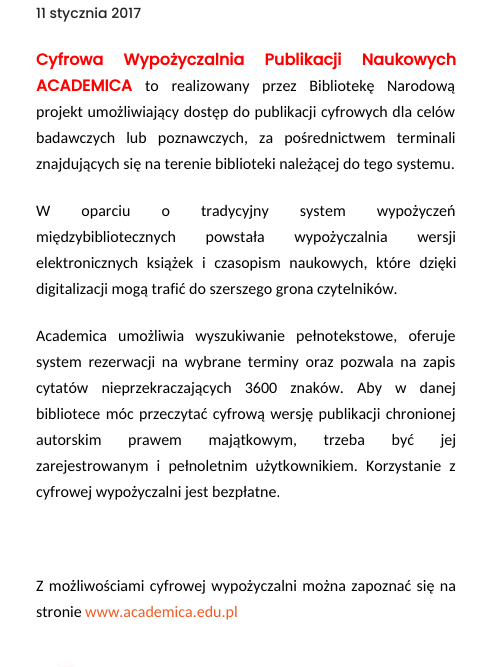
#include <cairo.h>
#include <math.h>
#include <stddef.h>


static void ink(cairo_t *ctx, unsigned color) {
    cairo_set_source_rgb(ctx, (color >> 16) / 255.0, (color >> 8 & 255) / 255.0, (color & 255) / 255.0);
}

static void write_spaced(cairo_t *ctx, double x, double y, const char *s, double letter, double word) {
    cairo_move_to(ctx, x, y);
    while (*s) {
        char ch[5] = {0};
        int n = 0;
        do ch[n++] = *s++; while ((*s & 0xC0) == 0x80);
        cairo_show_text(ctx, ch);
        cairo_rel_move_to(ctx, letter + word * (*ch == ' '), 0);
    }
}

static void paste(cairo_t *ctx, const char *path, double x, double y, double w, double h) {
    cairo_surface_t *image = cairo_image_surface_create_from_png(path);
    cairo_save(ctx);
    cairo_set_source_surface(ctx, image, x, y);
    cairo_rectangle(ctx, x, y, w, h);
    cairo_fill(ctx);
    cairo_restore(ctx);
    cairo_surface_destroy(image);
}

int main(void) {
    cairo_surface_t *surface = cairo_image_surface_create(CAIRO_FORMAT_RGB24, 492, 667);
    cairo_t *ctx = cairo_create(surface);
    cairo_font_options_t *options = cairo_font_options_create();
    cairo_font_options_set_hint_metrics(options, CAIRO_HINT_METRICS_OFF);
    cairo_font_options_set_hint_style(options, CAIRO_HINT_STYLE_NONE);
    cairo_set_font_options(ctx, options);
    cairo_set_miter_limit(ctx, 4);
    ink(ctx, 0xFFFFFF);
    cairo_paint(ctx);
    cairo_select_font_face(ctx, "Poppins Medium", CAIRO_FONT_SLANT_NORMAL, CAIRO_FONT_WEIGHT_NORMAL);
    cairo_set_font_size(ctx, 14);
    ink(ctx, 0x232323);
    cairo_move_to(ctx, 36, 18);
    cairo_show_text(ctx, "11 stycznia 2017");
    cairo_select_font_face(ctx, "Poppins", CAIRO_FONT_SLANT_NORMAL, CAIRO_FONT_WEIGHT_BOLD);
    cairo_set_font_size(ctx, 16);
    ink(ctx, 0xFF0000);
    write_spaced(ctx, 36, 65, "Cyfrowa Wypożyczalnia Publikacji Naukowych", 0, 16);
    cairo_move_to(ctx, 36, 91);
    cairo_show_text(ctx, "ACADEMICA");
    cairo_select_font_face(ctx, "Carlito", CAIRO_FONT_SLANT_NORMAL, CAIRO_FONT_WEIGHT_NORMAL);
    ink(ctx, 0x000000);
    write_spaced(ctx, 145, 91, "to realizowany przez Bibliotekę Narodową", 0, 9);
    write_spaced(ctx, 36, 117, "projekt umożliwiający dostęp do publikacji cyfrowych dla celów", 0, 1);
    write_spaced(ctx, 36, 143, "badawczych lub poznawczych, za pośrednictwem terminali", 0, 7.5);
    cairo_move_to(ctx, 36, 169);
    cairo_show_text(ctx, "znajdujących się na terenie biblioteki należącej do tego systemu.");
    write_spaced(ctx, 36, 216, "W oparciu o tradycyjny system wypożyczeń", 0, 27.5);
    write_spaced(ctx, 36, 242, "międzybibliotecznych powstała wypożyczalnia wersji", 0, 26);
    write_spaced(ctx, 36, 268, "elektronicznych książek i czasopism naukowych, które dzięki", 0, 5);
    cairo_move_to(ctx, 36, 294);
    cairo_show_text(ctx, "digitalizacji mogą trafić do szerszego grona czytelników.");
    write_spaced(ctx, 36, 341, "Academica umożliwia wyszukiwanie pełnotekstowe, oferuje", 0, 7.5);
    write_spaced(ctx, 36, 367, "system rezerwacji na wybrane terminy oraz pozwala na zapis", 0, 3);
    write_spaced(ctx, 36, 393, "cytatów nieprzekraczających 3600 znaków. Aby w danej", 0, 9.5);
    write_spaced(ctx, 36, 419, "bibliotece móc przeczytać cyfrową wersję publikacji chronionej", 0, 1.75);
    write_spaced(ctx, 36, 445, "autorskim prawem majątkowym, trzeba być jej", 0, 23);
    write_spaced(ctx, 36, 471, "zarejestrowanym i pełnoletnim użytkownikiem. Korzystanie z", 0, 4.5);
    cairo_move_to(ctx, 36, 497);
    cairo_show_text(ctx, "cyfrowej wypożyczalni jest bezpłatne.");
    write_spaced(ctx, 36, 591, "Z możliwościami cyfrowej wypożyczalni można zapoznać się na", 0, 1.75);
    cairo_move_to(ctx, 36, 617);
    cairo_show_text(ctx, "stronie");
    ink(ctx, 0xF15A22);
    cairo_move_to(ctx, 85, 617);
    cairo_show_text(ctx, "www.academica.edu.pl");
    paste(ctx, "media/1.png", 57, 661, 20, 6);
    cairo_surface_write_to_png(surface, "image.png");
    cairo_font_options_destroy(options);
    cairo_destroy(ctx);
    cairo_surface_destroy(surface);
    return 0;
}
